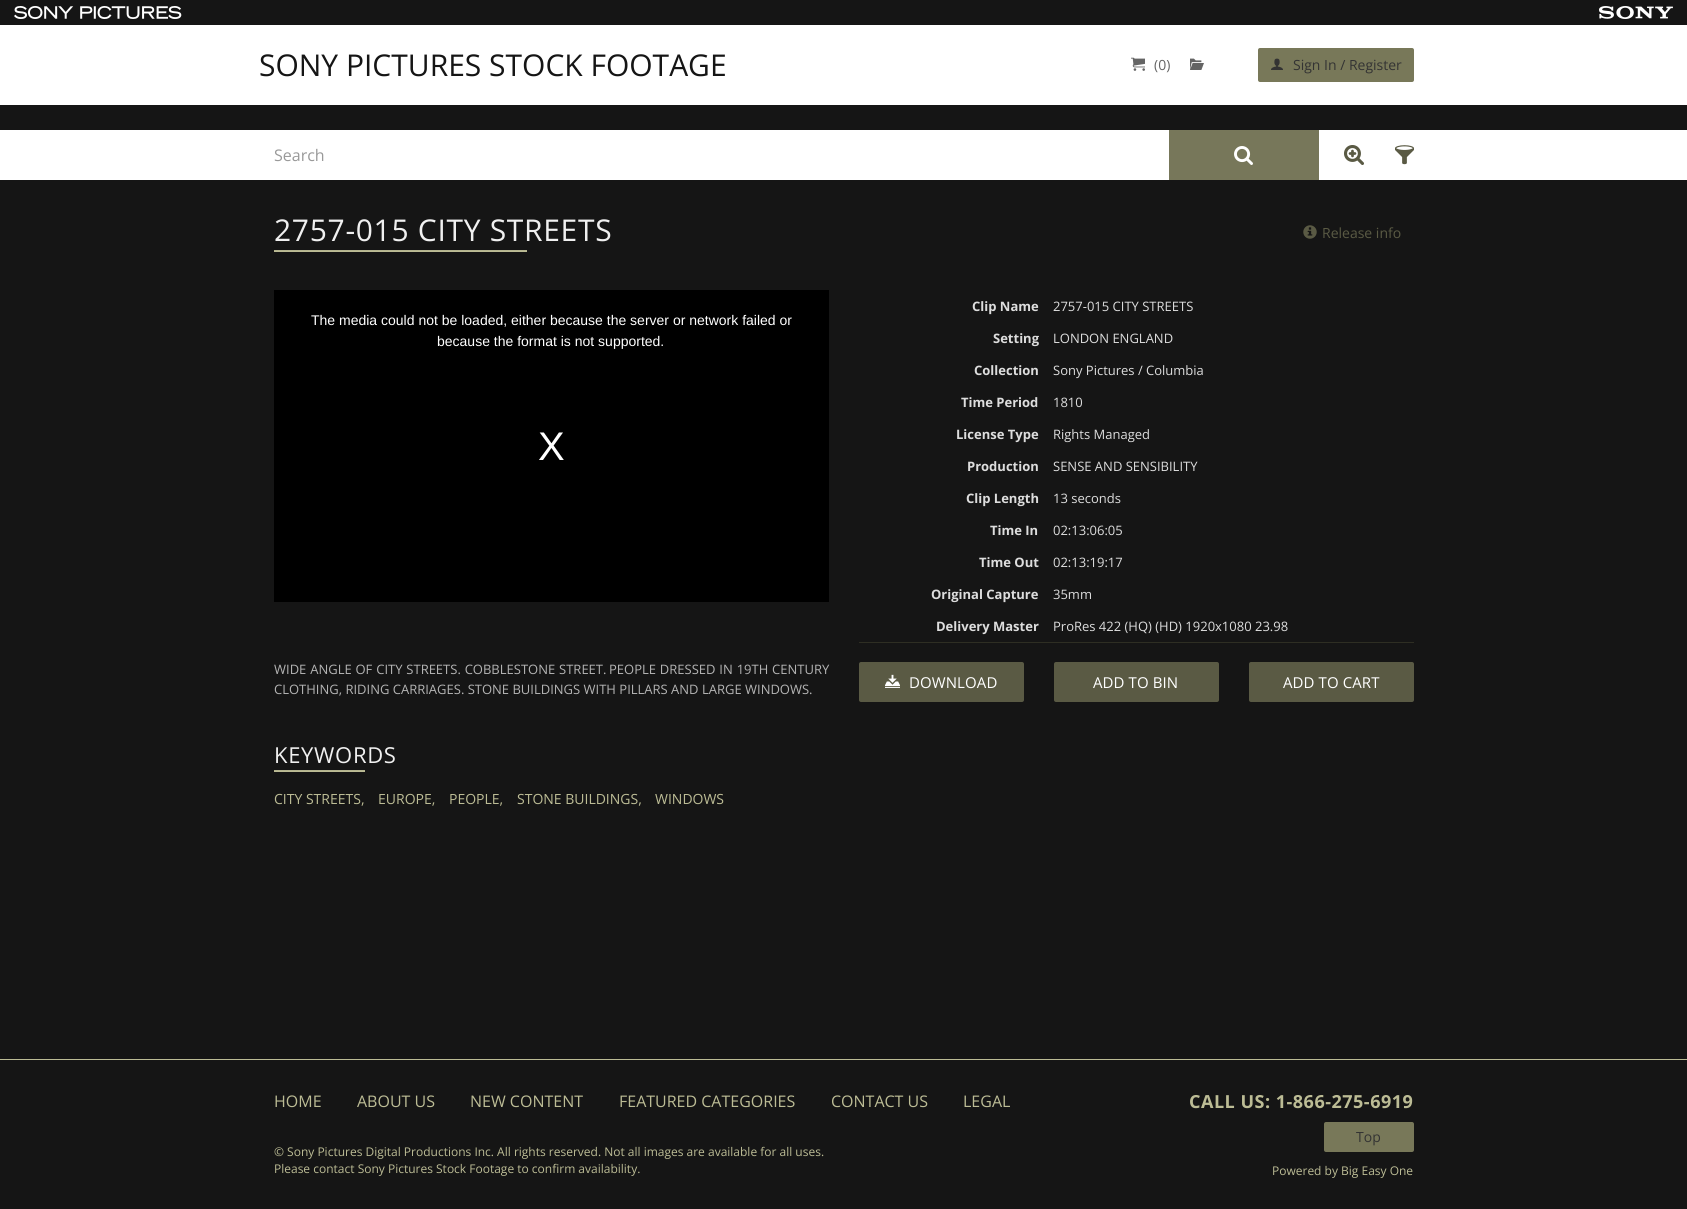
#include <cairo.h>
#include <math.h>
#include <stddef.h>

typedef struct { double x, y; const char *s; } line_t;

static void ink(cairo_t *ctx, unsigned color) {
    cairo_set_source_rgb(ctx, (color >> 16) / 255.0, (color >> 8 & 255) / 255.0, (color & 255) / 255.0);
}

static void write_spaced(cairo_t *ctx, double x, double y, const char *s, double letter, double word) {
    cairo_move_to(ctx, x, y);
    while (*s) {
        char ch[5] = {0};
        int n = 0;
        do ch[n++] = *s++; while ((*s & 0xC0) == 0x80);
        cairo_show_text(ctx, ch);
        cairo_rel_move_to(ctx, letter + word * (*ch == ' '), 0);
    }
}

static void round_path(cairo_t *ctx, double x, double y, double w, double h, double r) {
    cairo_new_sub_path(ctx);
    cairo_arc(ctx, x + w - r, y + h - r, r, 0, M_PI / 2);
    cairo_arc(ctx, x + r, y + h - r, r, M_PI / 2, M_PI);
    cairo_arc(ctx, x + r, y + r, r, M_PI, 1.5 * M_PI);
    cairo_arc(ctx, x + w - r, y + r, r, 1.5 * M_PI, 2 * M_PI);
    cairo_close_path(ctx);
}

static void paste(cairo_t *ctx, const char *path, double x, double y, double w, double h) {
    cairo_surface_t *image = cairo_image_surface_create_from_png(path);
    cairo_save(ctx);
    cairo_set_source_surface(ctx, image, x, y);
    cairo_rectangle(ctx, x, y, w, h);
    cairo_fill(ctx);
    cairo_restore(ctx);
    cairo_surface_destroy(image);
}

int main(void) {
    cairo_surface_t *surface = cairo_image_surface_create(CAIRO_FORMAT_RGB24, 1687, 1209);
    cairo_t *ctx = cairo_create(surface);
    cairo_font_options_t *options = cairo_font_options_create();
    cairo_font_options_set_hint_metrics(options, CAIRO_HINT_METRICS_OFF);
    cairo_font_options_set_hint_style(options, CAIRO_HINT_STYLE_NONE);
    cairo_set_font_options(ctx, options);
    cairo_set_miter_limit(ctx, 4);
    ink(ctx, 0x151515);
    cairo_paint(ctx);
    ink(ctx, 0xFFFFFF);
    cairo_rectangle(ctx, 0, 25, 1687, 80);
    cairo_fill(ctx);
    paste(ctx, "media/1.png", 14, 6, 168, 13);
    paste(ctx, "media/2.png", 1599, 6, 74, 13);
    cairo_select_font_face(ctx, "Open Sans", CAIRO_FONT_SLANT_NORMAL, CAIRO_FONT_WEIGHT_NORMAL);
    cairo_set_font_size(ctx, 30);
    ink(ctx, 0x151515);
    cairo_move_to(ctx, 259, 76);
    cairo_show_text(ctx, "SONY PICTURES STOCK FOOTAGE");
    paste(ctx, "media/3.png", 1131, 57, 14, 14);
    cairo_set_font_size(ctx, 14);
    ink(ctx, 0x646464);
    cairo_move_to(ctx, 1154, 70);
    cairo_show_text(ctx, "(0)");
    paste(ctx, "media/4.png", 1190, 58, 14, 12);
    ink(ctx, 0x787859);
    round_path(ctx, 1258, 48, 156, 34, 2);
    cairo_fill(ctx);
    paste(ctx, "media/5.png", 1271, 58, 12, 12);
    ink(ctx, 0x333333);
    cairo_move_to(ctx, 1293, 70);
    cairo_show_text(ctx, "Sign In / Register");
    ink(ctx, 0xFFFFFF);
    cairo_rectangle(ctx, 0, 130, 1687, 50);
    cairo_fill(ctx);
    cairo_set_font_size(ctx, 16);
    ink(ctx, 0x999999);
    cairo_move_to(ctx, 274, 161);
    cairo_show_text(ctx, "Search");
    ink(ctx, 0x77775A);
    cairo_rectangle(ctx, 1169, 130, 150, 50);
    cairo_fill(ctx);
    paste(ctx, "media/6.png", 1234, 146, 19, 19);
    paste(ctx, "media/7.png", 1344, 145, 20, 20);
    paste(ctx, "media/8.png", 1395, 145, 19, 20);
    cairo_set_font_size(ctx, 30);
    ink(ctx, 0xF0F0F0);
    write_spaced(ctx, 274, 241, "2757-015 CITY STREETS", 0.7, 0);
    ink(ctx, 0xBCBC95);
    cairo_rectangle(ctx, 274, 251, 253, 1);
    cairo_fill(ctx);
    ink(ctx, 0xB3B38E);
    cairo_rectangle(ctx, 274, 250, 253, 1);
    cairo_fill(ctx);
    paste(ctx, "media/9.png", 1303, 225, 14, 14);
    cairo_set_font_size(ctx, 14);
    ink(ctx, 0x5A5A44);
    cairo_move_to(ctx, 1322, 238);
    cairo_show_text(ctx, "Release info");
    ink(ctx, 0x000000);
    cairo_rectangle(ctx, 274, 290, 555, 312);
    cairo_fill(ctx);
    cairo_select_font_face(ctx, "Liberation Sans", CAIRO_FONT_SLANT_NORMAL, CAIRO_FONT_WEIGHT_NORMAL);
    ink(ctx, 0xFFFFFF);
    cairo_move_to(ctx, 311, 325);
    cairo_show_text(ctx, "The media could not be loaded, either because the server or network failed or");
    cairo_move_to(ctx, 437, 346);
    cairo_show_text(ctx, "because the format is not supported.");
    cairo_set_font_size(ctx, 40);
    cairo_move_to(ctx, 538, 460);
    cairo_show_text(ctx, "X");
    cairo_select_font_face(ctx, "Open Sans", CAIRO_FONT_SLANT_NORMAL, CAIRO_FONT_WEIGHT_BOLD);
    cairo_set_font_size(ctx, 13);
    ink(ctx, 0xDDDDDD);
    cairo_move_to(ctx, 972, 311);
    cairo_show_text(ctx, "Clip Name");
    cairo_select_font_face(ctx, "Open Sans", CAIRO_FONT_SLANT_NORMAL, CAIRO_FONT_WEIGHT_NORMAL);
    cairo_move_to(ctx, 1053, 311);
    cairo_show_text(ctx, "2757-015 CITY STREETS");
    cairo_select_font_face(ctx, "Open Sans", CAIRO_FONT_SLANT_NORMAL, CAIRO_FONT_WEIGHT_BOLD);
    cairo_move_to(ctx, 993, 343);
    cairo_show_text(ctx, "Setting");
    cairo_select_font_face(ctx, "Open Sans", CAIRO_FONT_SLANT_NORMAL, CAIRO_FONT_WEIGHT_NORMAL);
    cairo_move_to(ctx, 1053, 343);
    cairo_show_text(ctx, "LONDON ENGLAND");
    cairo_select_font_face(ctx, "Open Sans", CAIRO_FONT_SLANT_NORMAL, CAIRO_FONT_WEIGHT_BOLD);
    cairo_move_to(ctx, 974, 375);
    cairo_show_text(ctx, "Collection");
    cairo_select_font_face(ctx, "Open Sans", CAIRO_FONT_SLANT_NORMAL, CAIRO_FONT_WEIGHT_NORMAL);
    cairo_move_to(ctx, 1053, 375);
    cairo_show_text(ctx, "Sony Pictures / Columbia");
    cairo_select_font_face(ctx, "Open Sans", CAIRO_FONT_SLANT_NORMAL, CAIRO_FONT_WEIGHT_BOLD);
    cairo_move_to(ctx, 961, 407);
    cairo_show_text(ctx, "Time Period");
    cairo_select_font_face(ctx, "Open Sans", CAIRO_FONT_SLANT_NORMAL, CAIRO_FONT_WEIGHT_NORMAL);
    cairo_move_to(ctx, 1053, 407);
    cairo_show_text(ctx, "1810");
    cairo_select_font_face(ctx, "Open Sans", CAIRO_FONT_SLANT_NORMAL, CAIRO_FONT_WEIGHT_BOLD);
    cairo_move_to(ctx, 956, 439);
    cairo_show_text(ctx, "License Type");
    cairo_select_font_face(ctx, "Open Sans", CAIRO_FONT_SLANT_NORMAL, CAIRO_FONT_WEIGHT_NORMAL);
    cairo_move_to(ctx, 1053, 439);
    cairo_show_text(ctx, "Rights Managed");
    cairo_select_font_face(ctx, "Open Sans", CAIRO_FONT_SLANT_NORMAL, CAIRO_FONT_WEIGHT_BOLD);
    cairo_move_to(ctx, 967, 471);
    cairo_show_text(ctx, "Production");
    cairo_select_font_face(ctx, "Open Sans", CAIRO_FONT_SLANT_NORMAL, CAIRO_FONT_WEIGHT_NORMAL);
    cairo_move_to(ctx, 1053, 471);
    cairo_show_text(ctx, "SENSE AND SENSIBILITY");
    cairo_select_font_face(ctx, "Open Sans", CAIRO_FONT_SLANT_NORMAL, CAIRO_FONT_WEIGHT_BOLD);
    cairo_move_to(ctx, 966, 503);
    cairo_show_text(ctx, "Clip Length");
    cairo_select_font_face(ctx, "Open Sans", CAIRO_FONT_SLANT_NORMAL, CAIRO_FONT_WEIGHT_NORMAL);
    cairo_move_to(ctx, 1053, 503);
    cairo_show_text(ctx, "13 seconds");
    cairo_select_font_face(ctx, "Open Sans", CAIRO_FONT_SLANT_NORMAL, CAIRO_FONT_WEIGHT_BOLD);
    cairo_move_to(ctx, 990, 535);
    cairo_show_text(ctx, "Time In");
    cairo_select_font_face(ctx, "Open Sans", CAIRO_FONT_SLANT_NORMAL, CAIRO_FONT_WEIGHT_NORMAL);
    cairo_move_to(ctx, 1053, 535);
    cairo_show_text(ctx, "02:13:06:05");
    cairo_select_font_face(ctx, "Open Sans", CAIRO_FONT_SLANT_NORMAL, CAIRO_FONT_WEIGHT_BOLD);
    cairo_move_to(ctx, 979, 567);
    cairo_show_text(ctx, "Time Out");
    cairo_select_font_face(ctx, "Open Sans", CAIRO_FONT_SLANT_NORMAL, CAIRO_FONT_WEIGHT_NORMAL);
    cairo_move_to(ctx, 1053, 567);
    cairo_show_text(ctx, "02:13:19:17");
    cairo_select_font_face(ctx, "Open Sans", CAIRO_FONT_SLANT_NORMAL, CAIRO_FONT_WEIGHT_BOLD);
    cairo_move_to(ctx, 931, 599);
    cairo_show_text(ctx, "Original Capture");
    cairo_select_font_face(ctx, "Open Sans", CAIRO_FONT_SLANT_NORMAL, CAIRO_FONT_WEIGHT_NORMAL);
    cairo_move_to(ctx, 1053, 599);
    cairo_show_text(ctx, "35mm");
    cairo_select_font_face(ctx, "Open Sans", CAIRO_FONT_SLANT_NORMAL, CAIRO_FONT_WEIGHT_BOLD);
    cairo_move_to(ctx, 936, 631);
    cairo_show_text(ctx, "Delivery Master");
    cairo_select_font_face(ctx, "Open Sans", CAIRO_FONT_SLANT_NORMAL, CAIRO_FONT_WEIGHT_NORMAL);
    cairo_move_to(ctx, 1053, 631);
    cairo_show_text(ctx, "ProRes 422 (HQ) (HD) 1920x1080 23.98");
    ink(ctx, 0xB4B4B4);
    write_spaced(ctx, 274, 674, "WIDE ANGLE OF CITY STREETS. COBBLESTONE STREET.", 0, 0.5);
    write_spaced(ctx, 609, 674, "PEOPLE DRESSED IN 19TH CENTURY", 0, 0.5);
    cairo_move_to(ctx, 274, 694);
    cairo_show_text(ctx, "CLOTHING, RIDING CARRIAGES. STONE BUILDINGS WITH PILLARS AND LARGE WINDOWS.");
    ink(ctx, 0x2E2E23);
    cairo_rectangle(ctx, 859, 642, 555, 1);
    cairo_fill(ctx);
    ink(ctx, 0x5A5A44);
    round_path(ctx, 859, 662, 165, 40, 2);
    cairo_fill(ctx);
    paste(ctx, "media/10.png", 885, 674, 15, 14);
    cairo_set_font_size(ctx, 15);
    ink(ctx, 0xFFFFFF);
    write_spaced(ctx, 909, 688, "DOWNLOAD", 0.1, 0);
    ink(ctx, 0x5A5A44);
    round_path(ctx, 1054, 662, 165, 40, 2);
    cairo_fill(ctx);
    ink(ctx, 0xFFFFFF);
    write_spaced(ctx, 1093, 688, "ADD TO BIN", 0.1, 0);
    ink(ctx, 0x5A5A44);
    round_path(ctx, 1249, 662, 165, 40, 2);
    cairo_fill(ctx);
    ink(ctx, 0xFFFFFF);
    write_spaced(ctx, 1283, 688, "ADD TO CART", 0.1, 0);
    cairo_set_font_size(ctx, 22);
    ink(ctx, 0xF0F0F0);
    write_spaced(ctx, 274, 763, "KEYWORDS", 0.7, 0);
    ink(ctx, 0xBCBC95);
    cairo_rectangle(ctx, 274, 771, 91, 1);
    cairo_fill(ctx);
    ink(ctx, 0xB3B38E);
    cairo_rectangle(ctx, 274, 770, 91, 1);
    cairo_fill(ctx);
    cairo_set_font_size(ctx, 14);
    ink(ctx, 0xBCBC95);
    {
        static const line_t items[] = {
            {274, 804, "CITY STREETS,"},
            {378, 804, "EUROPE,"},
            {449, 804, "PEOPLE,"},
            {517, 804, "STONE BUILDINGS,"},
            {655, 804, "WINDOWS"},
        };
        for (size_t i = 0; i < sizeof items / sizeof *items; i++) {
            cairo_move_to(ctx, items[i].x, items[i].y);
            cairo_show_text(ctx, items[i].s);
        }
    }
    cairo_rectangle(ctx, 0, 1059, 1687, 1);
    cairo_fill(ctx);
    cairo_set_font_size(ctx, 16);
    {
        static const line_t items[] = {
            {274, 1107, "HOME"},
            {357, 1107, "ABOUT US"},
            {470, 1107, "NEW CONTENT"},
            {619, 1107, "FEATURED CATEGORIES"},
            {831, 1107, "CONTACT US"},
            {963, 1107, "LEGAL"},
        };
        for (size_t i = 0; i < sizeof items / sizeof *items; i++) {
            cairo_move_to(ctx, items[i].x, items[i].y);
            cairo_show_text(ctx, items[i].s);
        }
    }
    cairo_set_font_size(ctx, 12);
    cairo_move_to(ctx, 274, 1156);
    cairo_show_text(ctx, "© Sony Pictures Digital Productions Inc. All rights reserved. Not all images are available for all uses.");
    cairo_move_to(ctx, 274, 1173);
    cairo_show_text(ctx, "Please contact Sony Pictures Stock Footage to confirm availability.");
    cairo_select_font_face(ctx, "Open Sans", CAIRO_FONT_SLANT_NORMAL, CAIRO_FONT_WEIGHT_BOLD);
    cairo_set_font_size(ctx, 18);
    write_spaced(ctx, 1189, 1108, "CALL US: 1-866-275-6919", 0.5, 0);
    ink(ctx, 0x787859);
    round_path(ctx, 1324, 1122, 90, 30, 2);
    cairo_fill(ctx);
    cairo_select_font_face(ctx, "Open Sans", CAIRO_FONT_SLANT_NORMAL, CAIRO_FONT_WEIGHT_NORMAL);
    cairo_set_font_size(ctx, 14);
    ink(ctx, 0x333333);
    cairo_move_to(ctx, 1356, 1142);
    cairo_show_text(ctx, "Top");
    cairo_set_font_size(ctx, 12);
    ink(ctx, 0xBCBC95);
    cairo_move_to(ctx, 1272, 1175);
    cairo_show_text(ctx, "Powered by Big Easy One");
    cairo_surface_write_to_png(surface, "image.png");
    cairo_font_options_destroy(options);
    cairo_destroy(ctx);
    cairo_surface_destroy(surface);
    return 0;
}
